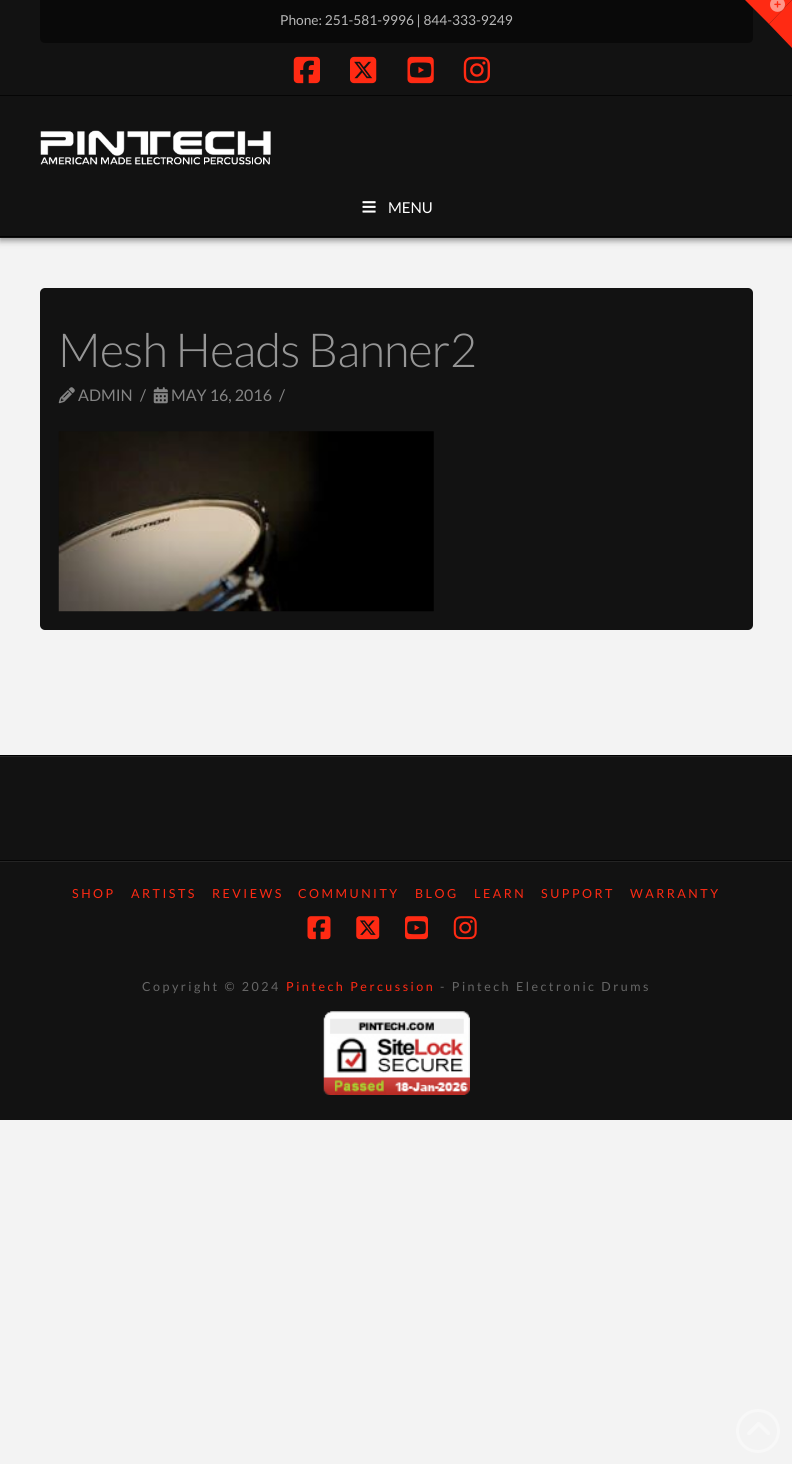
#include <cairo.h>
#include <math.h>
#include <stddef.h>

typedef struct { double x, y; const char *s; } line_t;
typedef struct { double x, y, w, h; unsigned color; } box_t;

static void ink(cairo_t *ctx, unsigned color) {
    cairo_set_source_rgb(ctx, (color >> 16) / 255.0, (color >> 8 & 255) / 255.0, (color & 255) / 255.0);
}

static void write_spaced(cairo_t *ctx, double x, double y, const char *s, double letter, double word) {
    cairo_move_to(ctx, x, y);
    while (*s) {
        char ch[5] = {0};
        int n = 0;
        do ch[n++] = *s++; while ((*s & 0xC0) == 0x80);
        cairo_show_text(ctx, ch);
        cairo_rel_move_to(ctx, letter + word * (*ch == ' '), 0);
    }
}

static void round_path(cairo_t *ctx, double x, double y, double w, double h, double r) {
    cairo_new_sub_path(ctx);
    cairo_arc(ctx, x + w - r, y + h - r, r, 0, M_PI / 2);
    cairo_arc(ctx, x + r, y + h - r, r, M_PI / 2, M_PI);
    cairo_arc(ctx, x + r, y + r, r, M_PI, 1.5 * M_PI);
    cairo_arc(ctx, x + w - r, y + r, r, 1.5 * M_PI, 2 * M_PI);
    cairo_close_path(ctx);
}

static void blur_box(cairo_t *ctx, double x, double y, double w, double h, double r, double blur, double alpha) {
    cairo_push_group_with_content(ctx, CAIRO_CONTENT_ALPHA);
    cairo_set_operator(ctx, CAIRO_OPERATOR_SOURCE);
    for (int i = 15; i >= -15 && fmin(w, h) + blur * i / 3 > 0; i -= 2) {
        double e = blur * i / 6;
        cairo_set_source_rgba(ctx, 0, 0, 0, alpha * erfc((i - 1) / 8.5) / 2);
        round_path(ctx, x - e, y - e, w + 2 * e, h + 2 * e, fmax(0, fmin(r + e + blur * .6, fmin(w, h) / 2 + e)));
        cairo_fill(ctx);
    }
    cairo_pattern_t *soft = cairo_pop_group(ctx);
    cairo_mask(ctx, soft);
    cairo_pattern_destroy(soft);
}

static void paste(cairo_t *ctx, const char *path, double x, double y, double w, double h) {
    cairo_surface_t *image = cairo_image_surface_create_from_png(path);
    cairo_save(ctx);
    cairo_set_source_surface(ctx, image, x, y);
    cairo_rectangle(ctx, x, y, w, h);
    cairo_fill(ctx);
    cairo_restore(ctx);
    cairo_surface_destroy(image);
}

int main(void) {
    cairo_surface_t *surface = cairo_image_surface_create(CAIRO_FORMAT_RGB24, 792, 1464);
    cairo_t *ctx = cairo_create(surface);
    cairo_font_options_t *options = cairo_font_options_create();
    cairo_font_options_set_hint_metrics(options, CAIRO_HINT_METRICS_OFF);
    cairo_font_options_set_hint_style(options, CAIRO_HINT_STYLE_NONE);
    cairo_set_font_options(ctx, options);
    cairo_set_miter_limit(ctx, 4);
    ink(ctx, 0xF3F3F3);
    cairo_paint(ctx);
    ink(ctx, 0x000000);
    blur_box(ctx, 0, 99, 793, 141, 0, 3.5, 0.47);
    ink(ctx, 0x121212);
    cairo_rectangle(ctx, 0, 0, 792, 95);
    cairo_fill(ctx);
    ink(ctx, 0x050505);
    cairo_rectangle(ctx, 0, 95, 792, 1);
    cairo_fill(ctx);
    ink(ctx, 0x090909);
    cairo_new_path(ctx);
    cairo_move_to(ctx, 40, 0);
    cairo_line_to(ctx, 753, 0);
    cairo_line_to(ctx, 753, 38);
    cairo_curve_to(ctx, 753, 41, 751, 43, 748, 43);
    cairo_line_to(ctx, 45, 43);
    cairo_curve_to(ctx, 42, 43, 40, 41, 40, 38);
    cairo_close_path(ctx);
    cairo_fill(ctx);
    cairo_select_font_face(ctx, "Lato", CAIRO_FONT_SLANT_NORMAL, CAIRO_FONT_WEIGHT_NORMAL);
    cairo_set_font_size(ctx, 13.75);
    ink(ctx, 0xB7B7B7);
    cairo_move_to(ctx, 280, 25);
    cairo_show_text(ctx, "Phone: 251-581-9996 | 844-333-9249");
    paste(ctx, "media/1.png", 293, 56, 27, 28);
    paste(ctx, "media/2.png", 350, 56, 27, 28);
    paste(ctx, "media/3.png", 407, 56, 27, 28);
    paste(ctx, "media/4.png", 463, 56, 27, 28);
    ink(ctx, 0x121212);
    cairo_rectangle(ctx, 0, 96, 792, 142);
    cairo_fill(ctx);
    ink(ctx, 0x000000);
    cairo_rectangle(ctx, 0, 236, 792, 1);
    cairo_fill(ctx);
    paste(ctx, "media/5.png", 40, 130, 231, 35);
    paste(ctx, "media/6.png", 362, 201, 14, 12);
    cairo_set_font_size(ctx, 15);
    ink(ctx, 0xFFFFFF);
    cairo_move_to(ctx, 388, 213);
    cairo_show_text(ctx, "MENU");
    ink(ctx, 0x121212);
    round_path(ctx, 40, 288, 713, 342, 5);
    cairo_fill(ctx);
    cairo_select_font_face(ctx, "Lato Light", CAIRO_FONT_SLANT_NORMAL, CAIRO_FONT_WEIGHT_NORMAL);
    cairo_set_font_size(ctx, 46.9);
    ink(ctx, 0x969696);
    write_spaced(ctx, 58, 367, "Mesh Heads Banner2", -0.75, 0);
    paste(ctx, "media/7.png", 58, 387, 17, 17);
    cairo_select_font_face(ctx, "Lato", CAIRO_FONT_SLANT_NORMAL, CAIRO_FONT_WEIGHT_NORMAL);
    cairo_set_font_size(ctx, 16);
    ink(ctx, 0x848484);
    cairo_move_to(ctx, 78, 401);
    cairo_show_text(ctx, "ADMIN");
    cairo_move_to(ctx, 140, 401);
    cairo_show_text(ctx, "/");
    paste(ctx, "media/8.png", 153, 387, 15, 17);
    cairo_move_to(ctx, 171, 401);
    cairo_show_text(ctx, "MAY 16, 2016");
    cairo_move_to(ctx, 279, 401);
    cairo_show_text(ctx, "/");
    paste(ctx, "media/9.png", 58, 431, 376, 181);
    {
        static const box_t items[] = {
            {0, 757, 792, 103, 0x121212},
            {0, 756, 792, 1, 0x242424},
            {0, 755, 792, 1, 0x000000},
            {0, 862, 792, 258, 0x121212},
            {0, 861, 792, 1, 0x242424},
            {0, 860, 792, 1, 0x050505},
        };
        for (size_t i = 0; i < sizeof items / sizeof *items; i++) {
            ink(ctx, items[i].color);
            cairo_rectangle(ctx, items[i].x, items[i].y, items[i].w, items[i].h);
            cairo_fill(ctx);
        }
    }
    cairo_set_font_size(ctx, 12.5);
    ink(ctx, 0xFF2A13);
    {
        static const line_t items[] = {
            {72, 898, "SHOP"},
            {131, 898, "ARTISTS"},
            {212, 898, "REVIEWS"},
            {298, 898, "COMMUNITY"},
            {415, 898, "BLOG"},
            {474, 898, "LEARN"},
            {541, 898, "SUPPORT"},
            {630, 898, "WARRANTY"},
        };
        for (size_t i = 0; i < sizeof items / sizeof *items; i++) {
            write_spaced(ctx, items[i].x, items[i].y, items[i].s, 2.5, 0);
        }
    }
    paste(ctx, "media/10.png", 307, 916, 24, 24);
    paste(ctx, "media/11.png", 356, 916, 24, 24);
    paste(ctx, "media/12.png", 405, 916, 23, 24);
    paste(ctx, "media/13.png", 453, 916, 24, 24);
    ink(ctx, 0x666666);
    write_spaced(ctx, 142, 991, "Copyright © 2024", 2.5, 0);
    ink(ctx, 0xFF2A13);
    write_spaced(ctx, 286, 991, "Pintech Percussion", 2.5, 0);
    ink(ctx, 0x666666);
    write_spaced(ctx, 440, 991, "- Pintech Electronic Drums", 2.5, 0);
    paste(ctx, "media/14.png", 323, 1011, 147, 84);
    ink(ctx, 0xFF2A13);
    cairo_new_path(ctx);
    cairo_move_to(ctx, 745, 0);
    cairo_line_to(ctx, 792, 0);
    cairo_line_to(ctx, 769, 24);
    cairo_close_path(ctx);
    cairo_fill(ctx);
    cairo_new_path(ctx);
    cairo_move_to(ctx, 792, 0);
    cairo_line_to(ctx, 792, 48);
    cairo_line_to(ctx, 769, 24);
    cairo_close_path(ctx);
    cairo_fill(ctx);
    paste(ctx, "media/15.png", 770, 0, 15, 12);
    cairo_arc(ctx, 758, 1431, 20.5, 0, 2 * M_PI);
    ink(ctx, 0xF8F8F8);
    cairo_set_line_width(ctx, 3);
    cairo_stroke(ctx);
    paste(ctx, "media/16.png", 747, 1422, 23, 13);
    cairo_surface_write_to_png(surface, "image.png");
    cairo_font_options_destroy(options);
    cairo_destroy(ctx);
    cairo_surface_destroy(surface);
    return 0;
}
